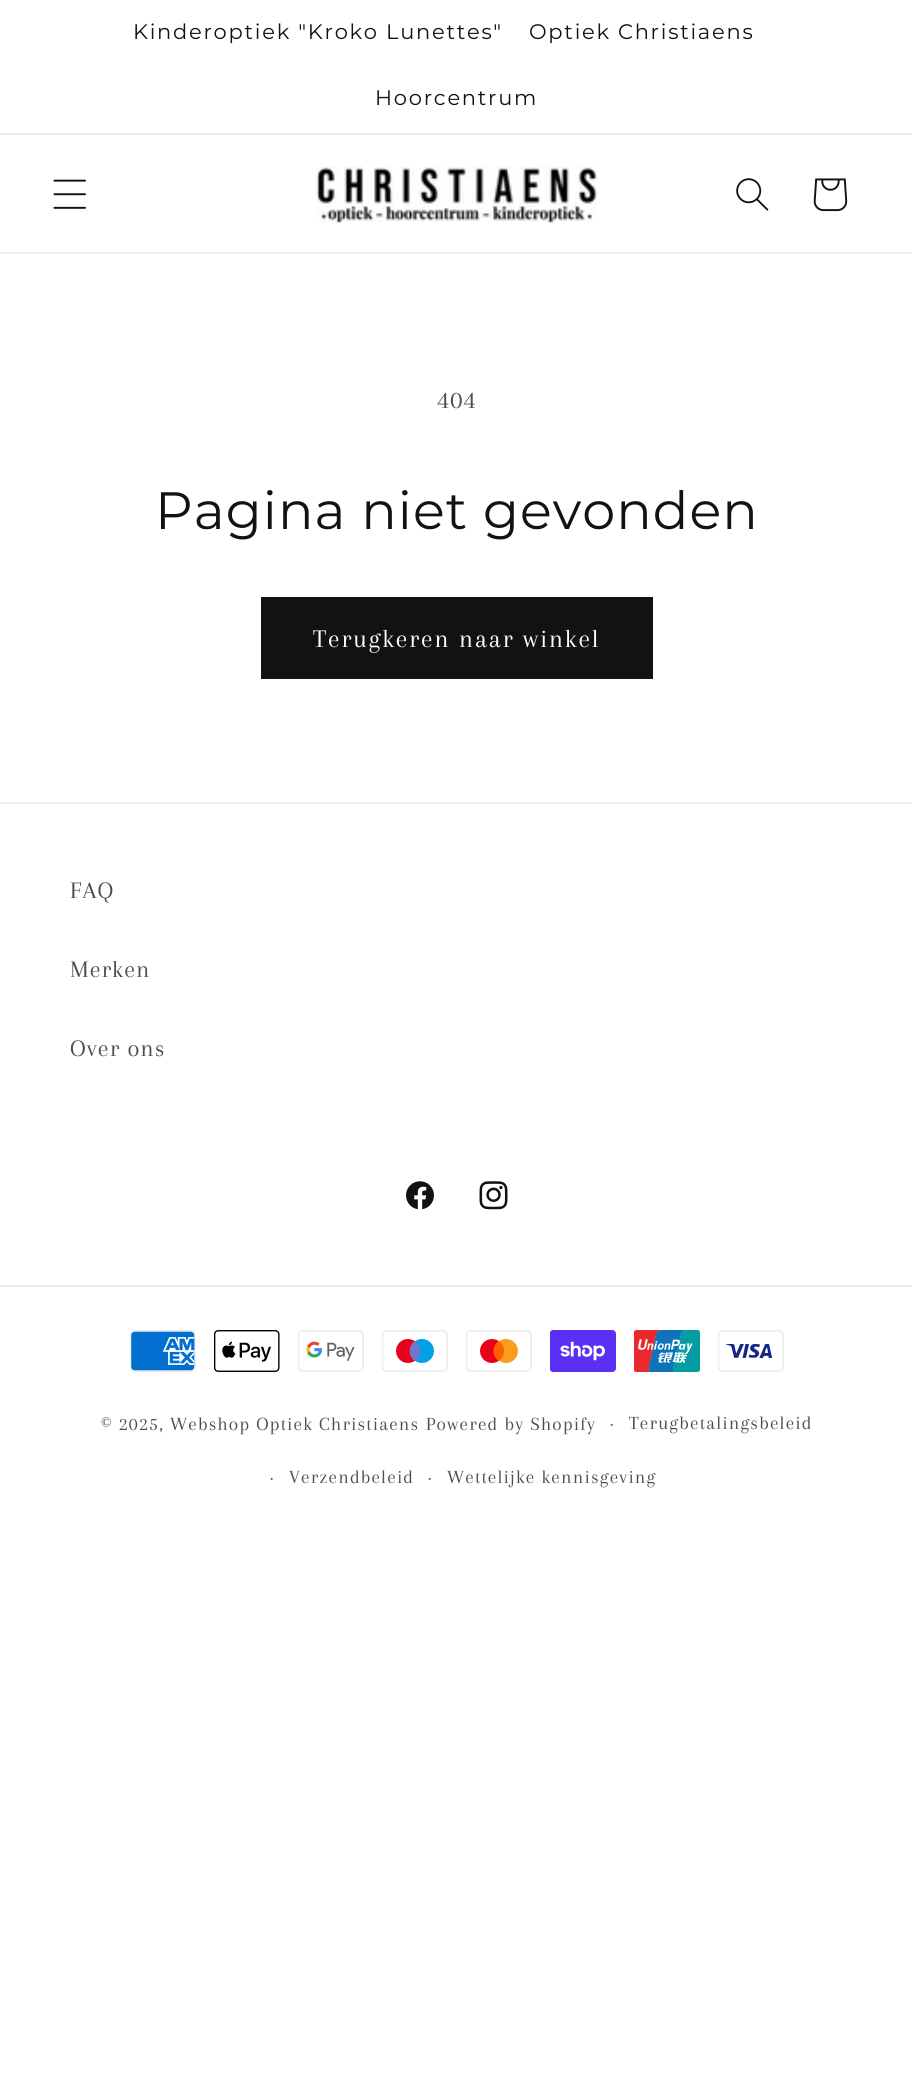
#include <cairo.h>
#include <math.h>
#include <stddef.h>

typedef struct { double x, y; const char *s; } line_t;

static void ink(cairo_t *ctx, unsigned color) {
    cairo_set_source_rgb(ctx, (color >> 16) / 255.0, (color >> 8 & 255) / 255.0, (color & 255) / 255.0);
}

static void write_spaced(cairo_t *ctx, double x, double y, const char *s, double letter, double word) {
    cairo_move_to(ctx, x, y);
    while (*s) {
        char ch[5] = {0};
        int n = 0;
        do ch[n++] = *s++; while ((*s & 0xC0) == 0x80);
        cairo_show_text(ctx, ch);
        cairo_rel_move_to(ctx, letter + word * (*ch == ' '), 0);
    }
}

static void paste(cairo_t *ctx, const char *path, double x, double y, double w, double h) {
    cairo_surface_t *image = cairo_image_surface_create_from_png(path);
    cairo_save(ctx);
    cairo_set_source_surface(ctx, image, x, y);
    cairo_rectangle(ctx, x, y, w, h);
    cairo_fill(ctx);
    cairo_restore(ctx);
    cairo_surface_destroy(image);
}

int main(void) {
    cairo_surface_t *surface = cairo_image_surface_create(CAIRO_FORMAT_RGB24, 912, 2084);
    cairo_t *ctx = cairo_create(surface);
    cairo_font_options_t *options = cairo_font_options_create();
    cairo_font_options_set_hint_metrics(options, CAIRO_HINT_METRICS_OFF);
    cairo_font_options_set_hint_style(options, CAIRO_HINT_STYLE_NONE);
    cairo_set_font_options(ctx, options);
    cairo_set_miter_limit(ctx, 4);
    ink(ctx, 0xFFFFFF);
    cairo_paint(ctx);
    ink(ctx, 0xECECEC);
    cairo_rectangle(ctx, 0, 252, 912, 2);
    cairo_fill(ctx);
    cairo_rectangle(ctx, 0, 133, 912, 2);
    cairo_fill(ctx);
    cairo_select_font_face(ctx, "Montserrat", CAIRO_FONT_SLANT_NORMAL, CAIRO_FONT_WEIGHT_NORMAL);
    cairo_set_font_size(ctx, 21);
    ink(ctx, 0x121212);
    {
        static const line_t items[] = {
            {133, 39, "Kinderoptiek \"Kroko Lunettes\""},
            {529, 39, "Optiek Christiaens"},
            {375, 105, "Hoorcentrum"},
        };
        for (size_t i = 0; i < sizeof items / sizeof *items; i++) {
            write_spaced(ctx, items[i].x, items[i].y, items[i].s, 1.75, 0);
        }
    }
    paste(ctx, "media/1.png", 53, 179, 33, 30);
    paste(ctx, "media/2.png", 316, 166, 281, 57);
    paste(ctx, "media/3.png", 736, 178, 33, 33);
    paste(ctx, "media/4.png", 813, 178, 35, 34);
    cairo_select_font_face(ctx, "Arapey", CAIRO_FONT_SLANT_NORMAL, CAIRO_FONT_WEIGHT_NORMAL);
    cairo_set_font_size(ctx, 26.25);
    ink(ctx, 0x4D4D4D);
    write_spaced(ctx, 437, 408, "404", 1.05, 0);
    cairo_select_font_face(ctx, "Montserrat", CAIRO_FONT_SLANT_NORMAL, CAIRO_FONT_WEIGHT_NORMAL);
    cairo_set_font_size(ctx, 52.5);
    ink(ctx, 0x121212);
    write_spaced(ctx, 155, 529, "Pagina niet gevonden", 1.05, 0);
    cairo_rectangle(ctx, 261, 597, 392, 82);
    cairo_fill(ctx);
    cairo_select_font_face(ctx, "Arapey", CAIRO_FONT_SLANT_NORMAL, CAIRO_FONT_WEIGHT_NORMAL);
    cairo_set_font_size(ctx, 26.25);
    ink(ctx, 0xFFFFFF);
    write_spaced(ctx, 313, 647, "Terugkeren naar winkel", 1.75, 0);
    ink(ctx, 0xECECEC);
    cairo_rectangle(ctx, 0, 802, 912, 2);
    cairo_fill(ctx);
    cairo_set_font_size(ctx, 24.5);
    ink(ctx, 0x4D4D4D);
    {
        static const line_t items[] = {
            {70, 898, "FAQ"},
            {70, 977, "Merken"},
            {70, 1056, "Over ons"},
        };
        for (size_t i = 0; i < sizeof items / sizeof *items; i++) {
            write_spaced(ctx, items[i].x, items[i].y, items[i].s, 1.05, 0);
        }
    }
    paste(ctx, "media/5.png", 406, 1181, 28, 29);
    paste(ctx, "media/6.png", 479, 1181, 29, 29);
    ink(ctx, 0xECECEC);
    cairo_rectangle(ctx, 0, 1285, 912, 2);
    cairo_fill(ctx);
    paste(ctx, "media/7.png", 130, 1330, 66, 42);
    paste(ctx, "media/8.png", 214, 1330, 66, 42);
    paste(ctx, "media/9.png", 298, 1330, 66, 42);
    paste(ctx, "media/10.png", 382, 1330, 66, 42);
    paste(ctx, "media/11.png", 466, 1330, 66, 42);
    paste(ctx, "media/12.png", 550, 1330, 66, 42);
    paste(ctx, "media/13.png", 634, 1330, 66, 42);
    paste(ctx, "media/14.png", 718, 1330, 66, 42);
    cairo_set_font_size(ctx, 19.25);
    ink(ctx, 0x4D4D4D);
    write_spaced(ctx, 101, 1430, "© 2025, Webshop Optiek Christiaens", 1.2, 0);
    cairo_set_font_size(ctx, 18);
    write_spaced(ctx, 610, 1430, "·", 1.2, 0);
    cairo_set_font_size(ctx, 19.25);
    write_spaced(ctx, 629, 1429, "Terugbetalingsbeleid", 1.2, 0);
    cairo_set_font_size(ctx, 18);
    write_spaced(ctx, 270, 1484, "·", 1.2, 0);
    cairo_set_font_size(ctx, 19.25);
    write_spaced(ctx, 289, 1483, "Verzendbeleid", 1.2, 0);
    cairo_set_font_size(ctx, 18);
    write_spaced(ctx, 428, 1484, "·", 1.2, 0);
    cairo_set_font_size(ctx, 19.25);
    write_spaced(ctx, 447, 1483, "Wettelijke kennisgeving", 1.2, 0);
    write_spaced(ctx, 426, 1430, "Powered by Shopify", 1.2, 0);
    cairo_surface_write_to_png(surface, "image.png");
    cairo_font_options_destroy(options);
    cairo_destroy(ctx);
    cairo_surface_destroy(surface);
    return 0;
}
